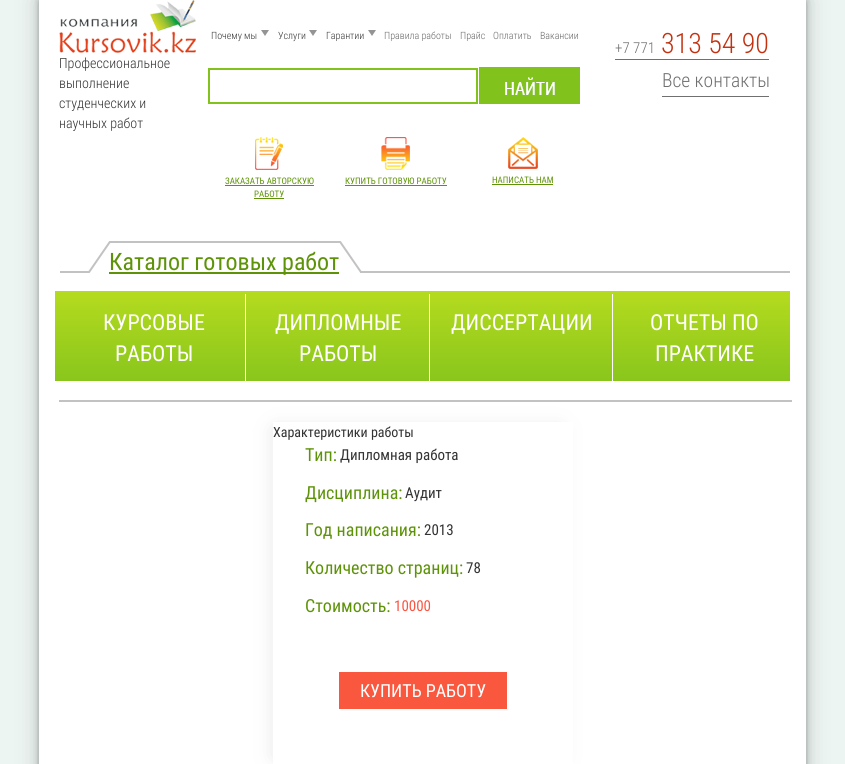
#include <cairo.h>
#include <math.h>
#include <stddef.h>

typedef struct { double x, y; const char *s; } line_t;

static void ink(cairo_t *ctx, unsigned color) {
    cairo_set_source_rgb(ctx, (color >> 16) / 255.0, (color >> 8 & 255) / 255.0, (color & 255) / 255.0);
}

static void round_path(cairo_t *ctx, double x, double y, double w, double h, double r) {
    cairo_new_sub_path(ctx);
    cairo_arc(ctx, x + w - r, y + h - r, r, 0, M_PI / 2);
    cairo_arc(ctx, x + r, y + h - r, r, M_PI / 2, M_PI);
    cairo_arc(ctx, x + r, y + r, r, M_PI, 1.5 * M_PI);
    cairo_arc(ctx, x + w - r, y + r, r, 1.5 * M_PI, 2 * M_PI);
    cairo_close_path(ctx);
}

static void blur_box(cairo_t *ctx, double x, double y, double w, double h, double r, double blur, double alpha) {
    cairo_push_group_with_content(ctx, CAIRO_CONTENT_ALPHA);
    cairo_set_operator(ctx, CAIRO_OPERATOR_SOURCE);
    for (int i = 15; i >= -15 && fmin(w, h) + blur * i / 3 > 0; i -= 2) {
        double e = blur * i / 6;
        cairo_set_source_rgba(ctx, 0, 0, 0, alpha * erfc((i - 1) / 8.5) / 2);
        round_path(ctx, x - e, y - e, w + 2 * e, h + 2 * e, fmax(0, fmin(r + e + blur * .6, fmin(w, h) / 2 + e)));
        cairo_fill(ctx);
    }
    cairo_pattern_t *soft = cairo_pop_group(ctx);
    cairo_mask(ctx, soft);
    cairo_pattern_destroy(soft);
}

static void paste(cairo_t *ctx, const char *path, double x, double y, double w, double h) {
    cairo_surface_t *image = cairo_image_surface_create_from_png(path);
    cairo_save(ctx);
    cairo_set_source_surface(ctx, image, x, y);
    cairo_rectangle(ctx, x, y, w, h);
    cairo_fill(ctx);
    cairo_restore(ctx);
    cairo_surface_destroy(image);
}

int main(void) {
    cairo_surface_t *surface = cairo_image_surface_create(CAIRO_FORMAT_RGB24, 845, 764);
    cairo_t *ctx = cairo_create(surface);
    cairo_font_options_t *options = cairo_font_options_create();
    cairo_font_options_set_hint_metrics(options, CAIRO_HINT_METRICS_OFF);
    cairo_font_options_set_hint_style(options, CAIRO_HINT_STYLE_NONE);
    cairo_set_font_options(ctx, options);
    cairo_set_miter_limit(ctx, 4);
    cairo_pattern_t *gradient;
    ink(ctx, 0xEDF5F3);
    cairo_paint(ctx);
    ink(ctx, 0x323232);
    blur_box(ctx, 39, 0, 767, 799, 0, 11.5, 0.25);
    blur_box(ctx, 39, 0, 767, 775, 0, 3.5, 0.35);
    ink(ctx, 0xFFFFFF);
    cairo_rectangle(ctx, 39, 0, 767, 764);
    cairo_fill(ctx);
    paste(ctx, "media/1.png", 59, 0, 137, 53);
    cairo_select_font_face(ctx, "Roboto Condensed Light", CAIRO_FONT_SLANT_NORMAL, CAIRO_FONT_WEIGHT_NORMAL);
    cairo_set_font_size(ctx, 14);
    ink(ctx, 0x333333);
    {
        static const line_t items[] = {
            {59, 68, "Профессиональное"},
            {59, 88, "выполнение"},
            {59, 108, "студенческих и"},
            {59, 128, "научных работ"},
        };
        for (size_t i = 0; i < sizeof items / sizeof *items; i++) {
            cairo_move_to(ctx, items[i].x, items[i].y);
            cairo_show_text(ctx, items[i].s);
        }
    }
    cairo_set_font_size(ctx, 10);
    cairo_move_to(ctx, 211, 39);
    cairo_show_text(ctx, "Почему мы");
    cairo_move_to(ctx, 278, 39);
    cairo_show_text(ctx, "Услуги");
    ink(ctx, 0x959494);
    cairo_new_path(ctx);
    cairo_move_to(ctx, 261, 30);
    cairo_line_to(ctx, 269, 30);
    cairo_line_to(ctx, 265, 36);
    cairo_close_path(ctx);
    cairo_move_to(ctx, 309, 30);
    cairo_line_to(ctx, 317, 30);
    cairo_line_to(ctx, 313, 36);
    cairo_close_path(ctx);
    cairo_fill(ctx);
    ink(ctx, 0x333333);
    cairo_move_to(ctx, 326, 39);
    cairo_show_text(ctx, "Гарантии");
    ink(ctx, 0x959494);
    cairo_new_path(ctx);
    cairo_move_to(ctx, 368, 30);
    cairo_line_to(ctx, 376, 30);
    cairo_line_to(ctx, 372, 36);
    cairo_close_path(ctx);
    cairo_fill(ctx);
    ink(ctx, 0x696969);
    {
        static const line_t items[] = {
            {384, 39, "Правила работы"},
            {460, 39, "Прайс"},
            {493, 39, "Оплатить"},
            {540, 39, "Вакансии"},
        };
        for (size_t i = 0; i < sizeof items / sizeof *items; i++) {
            cairo_move_to(ctx, items[i].x, items[i].y);
            cairo_show_text(ctx, items[i].s);
        }
    }
    cairo_rectangle(ctx, 209, 69, 268, 34);
    ink(ctx, 0x81C21C);
    cairo_stroke(ctx);
    paste(ctx, "media/2.png", 481, 69, 97, 33);
    cairo_rectangle(ctx, 480, 68, 99, 35);
    cairo_stroke(ctx);
    paste(ctx, "media/3.png", 255, 137, 28, 33);
    cairo_select_font_face(ctx, "Roboto Condensed", CAIRO_FONT_SLANT_NORMAL, CAIRO_FONT_WEIGHT_NORMAL);
    cairo_set_font_size(ctx, 9);
    ink(ctx, 0x5E9309);
    cairo_move_to(ctx, 225, 184);
    cairo_show_text(ctx, "ЗАКАЗАТЬ АВТОРСКУЮ");
    cairo_rectangle(ctx, 225, 185, 89, 1);
    cairo_fill(ctx);
    cairo_move_to(ctx, 254, 197);
    cairo_show_text(ctx, "РАБОТУ");
    cairo_rectangle(ctx, 254, 198, 30, 1);
    cairo_fill(ctx);
    paste(ctx, "media/4.png", 381, 137, 29, 33);
    cairo_move_to(ctx, 345, 184);
    cairo_show_text(ctx, "КУПИТЬ ГОТОВУЮ РАБОТУ");
    cairo_rectangle(ctx, 345, 185, 102, 1);
    cairo_fill(ctx);
    paste(ctx, "media/5.png", 508, 137, 30, 32);
    cairo_move_to(ctx, 492, 183);
    cairo_show_text(ctx, "НАПИСАТЬ НАМ");
    cairo_rectangle(ctx, 492, 184, 61, 1);
    cairo_fill(ctx);
    ink(ctx, 0x707070);
    cairo_rectangle(ctx, 615, 59, 154, 1);
    cairo_fill(ctx);
    cairo_select_font_face(ctx, "Roboto Condensed Light", CAIRO_FONT_SLANT_NORMAL, CAIRO_FONT_WEIGHT_NORMAL);
    cairo_set_font_size(ctx, 15);
    cairo_move_to(ctx, 615, 53);
    cairo_show_text(ctx, "+7 771");
    cairo_set_font_size(ctx, 28);
    ink(ctx, 0xC3310F);
    cairo_move_to(ctx, 661, 53);
    cairo_show_text(ctx, "313 54 90");
    ink(ctx, 0x707070);
    cairo_rectangle(ctx, 662, 96, 107, 1);
    cairo_fill(ctx);
    cairo_set_font_size(ctx, 19.5);
    cairo_move_to(ctx, 662, 87);
    cairo_show_text(ctx, "Все контакты");
    paste(ctx, "media/6.png", 60, 241, 730, 32);
    ink(ctx, 0x5E9309);
    cairo_rectangle(ctx, 109, 272, 230, 2);
    cairo_fill(ctx);
    cairo_select_font_face(ctx, "Roboto Condensed", CAIRO_FONT_SLANT_NORMAL, CAIRO_FONT_WEIGHT_NORMAL);
    cairo_set_font_size(ctx, 24);
    cairo_move_to(ctx, 109, 270);
    cairo_show_text(ctx, "Каталог готовых работ");
    gradient = cairo_pattern_create_linear(423, 291, 423, 381);
    cairo_pattern_add_color_stop_rgba(gradient, 0, 0.71, 0.859, 0.122, 1);
    cairo_pattern_add_color_stop_rgba(gradient, 1, 0.537, 0.776, 0.11, 1);
    cairo_set_source(ctx, gradient);
    cairo_pattern_destroy(gradient);
    cairo_rectangle(ctx, 55, 291, 735, 90);
    cairo_fill(ctx);
    cairo_set_font_size(ctx, 22);
    ink(ctx, 0xFFFFFF);
    cairo_move_to(ctx, 103, 330);
    cairo_show_text(ctx, "КУРСОВЫЕ");
    cairo_move_to(ctx, 115, 361);
    cairo_show_text(ctx, "РАБОТЫ");
    cairo_rectangle(ctx, 245, 294, 1, 88);
    cairo_fill(ctx);
    cairo_move_to(ctx, 275, 330);
    cairo_show_text(ctx, "ДИПЛОМНЫЕ");
    cairo_move_to(ctx, 299, 361);
    cairo_show_text(ctx, "РАБОТЫ");
    cairo_rectangle(ctx, 429, 294, 1, 88);
    cairo_fill(ctx);
    cairo_move_to(ctx, 451, 330);
    cairo_show_text(ctx, "ДИССЕРТАЦИИ");
    cairo_rectangle(ctx, 612, 294, 1, 88);
    cairo_fill(ctx);
    cairo_move_to(ctx, 650, 330);
    cairo_show_text(ctx, "ОТЧЕТЫ ПО");
    cairo_move_to(ctx, 655, 361);
    cairo_show_text(ctx, "ПРАКТИКЕ");
    ink(ctx, 0xC2C2C2);
    cairo_rectangle(ctx, 59, 400, 733, 2);
    cairo_fill(ctx);
    cairo_save(ctx);
    cairo_set_fill_rule(ctx, CAIRO_FILL_RULE_EVEN_ODD);
    cairo_new_path(ctx);
    cairo_move_to(ctx, 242, 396);
    cairo_line_to(ctx, 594, 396);
    cairo_line_to(ctx, 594, 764);
    cairo_line_to(ctx, 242, 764);
    cairo_close_path(ctx);
    cairo_move_to(ctx, 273, 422);
    cairo_line_to(ctx, 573, 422);
    cairo_line_to(ctx, 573, 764);
    cairo_line_to(ctx, 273, 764);
    cairo_close_path(ctx);
    cairo_clip(ctx);
    ink(ctx, 0xE4E4E5);
    blur_box(ctx, 275, 429, 286, 328, 0, 10.5, 1);
    cairo_restore(ctx);
    cairo_set_font_size(ctx, 14);
    ink(ctx, 0x333333);
    cairo_move_to(ctx, 273, 437);
    cairo_show_text(ctx, "Характеристики работы");
    cairo_set_font_size(ctx, 18);
    ink(ctx, 0x5E9309);
    cairo_move_to(ctx, 305, 461);
    cairo_show_text(ctx, "Тип:");
    cairo_set_font_size(ctx, 15);
    ink(ctx, 0x333333);
    cairo_move_to(ctx, 340, 460);
    cairo_show_text(ctx, "Дипломная работа");
    cairo_set_font_size(ctx, 18);
    ink(ctx, 0x5E9309);
    cairo_move_to(ctx, 305, 499);
    cairo_show_text(ctx, "Дисциплина:");
    cairo_set_font_size(ctx, 15);
    ink(ctx, 0x333333);
    cairo_move_to(ctx, 405, 498);
    cairo_show_text(ctx, "Аудит");
    cairo_set_font_size(ctx, 18);
    ink(ctx, 0x5E9309);
    cairo_move_to(ctx, 305, 536);
    cairo_show_text(ctx, "Год написания:");
    cairo_set_font_size(ctx, 15);
    ink(ctx, 0x333333);
    cairo_move_to(ctx, 424, 535);
    cairo_show_text(ctx, "2013");
    cairo_set_font_size(ctx, 18);
    ink(ctx, 0x5E9309);
    cairo_move_to(ctx, 305, 574);
    cairo_show_text(ctx, "Количество страниц:");
    cairo_set_font_size(ctx, 15);
    ink(ctx, 0x333333);
    cairo_move_to(ctx, 466, 573);
    cairo_show_text(ctx, "78");
    cairo_set_font_size(ctx, 18);
    ink(ctx, 0x5E9309);
    cairo_move_to(ctx, 305, 612);
    cairo_show_text(ctx, "Стоимость:");
    cairo_set_font_size(ctx, 15);
    ink(ctx, 0xFA5542);
    cairo_move_to(ctx, 394, 611);
    cairo_show_text(ctx, "10000");
    ink(ctx, 0xFA583E);
    cairo_rectangle(ctx, 339, 672, 168, 37);
    cairo_fill(ctx);
    cairo_set_font_size(ctx, 18);
    ink(ctx, 0xFFFFFF);
    cairo_move_to(ctx, 360, 697);
    cairo_show_text(ctx, "КУПИТЬ РАБОТУ");
    cairo_surface_write_to_png(surface, "image.png");
    cairo_font_options_destroy(options);
    cairo_destroy(ctx);
    cairo_surface_destroy(surface);
    return 0;
}
